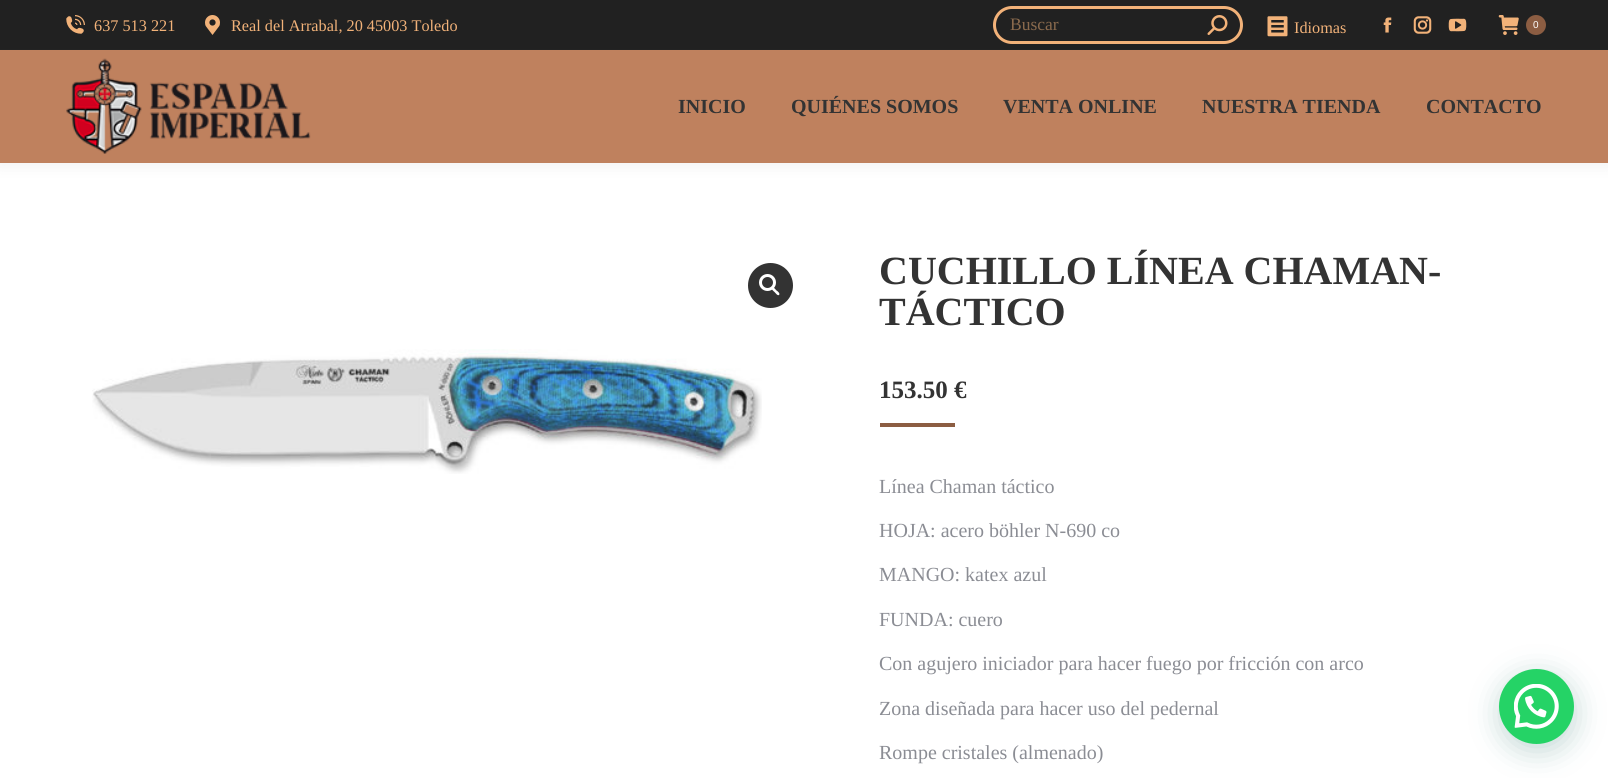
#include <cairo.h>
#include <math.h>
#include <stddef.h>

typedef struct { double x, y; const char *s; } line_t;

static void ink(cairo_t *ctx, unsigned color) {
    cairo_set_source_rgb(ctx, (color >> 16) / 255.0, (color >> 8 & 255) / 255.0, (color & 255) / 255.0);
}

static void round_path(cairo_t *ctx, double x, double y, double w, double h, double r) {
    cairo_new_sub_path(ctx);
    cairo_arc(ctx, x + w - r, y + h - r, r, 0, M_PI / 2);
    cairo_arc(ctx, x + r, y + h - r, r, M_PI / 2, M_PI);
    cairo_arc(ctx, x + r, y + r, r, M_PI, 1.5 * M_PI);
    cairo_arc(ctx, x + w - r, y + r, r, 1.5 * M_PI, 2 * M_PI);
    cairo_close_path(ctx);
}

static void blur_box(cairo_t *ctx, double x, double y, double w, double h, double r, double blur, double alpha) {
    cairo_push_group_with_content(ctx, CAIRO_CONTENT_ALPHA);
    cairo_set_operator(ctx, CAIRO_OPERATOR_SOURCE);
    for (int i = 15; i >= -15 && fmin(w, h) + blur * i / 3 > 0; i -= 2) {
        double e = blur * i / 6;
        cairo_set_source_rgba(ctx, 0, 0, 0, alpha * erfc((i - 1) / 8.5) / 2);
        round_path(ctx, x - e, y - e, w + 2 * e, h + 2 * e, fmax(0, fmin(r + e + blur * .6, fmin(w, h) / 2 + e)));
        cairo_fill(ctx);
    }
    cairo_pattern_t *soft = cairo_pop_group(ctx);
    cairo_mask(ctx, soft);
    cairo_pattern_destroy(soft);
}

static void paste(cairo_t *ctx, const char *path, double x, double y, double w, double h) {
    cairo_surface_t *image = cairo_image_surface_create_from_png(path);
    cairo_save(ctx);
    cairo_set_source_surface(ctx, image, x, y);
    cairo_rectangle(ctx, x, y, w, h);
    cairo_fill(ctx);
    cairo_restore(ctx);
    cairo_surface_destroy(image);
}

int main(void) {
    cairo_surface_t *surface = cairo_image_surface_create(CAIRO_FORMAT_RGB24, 1608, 778);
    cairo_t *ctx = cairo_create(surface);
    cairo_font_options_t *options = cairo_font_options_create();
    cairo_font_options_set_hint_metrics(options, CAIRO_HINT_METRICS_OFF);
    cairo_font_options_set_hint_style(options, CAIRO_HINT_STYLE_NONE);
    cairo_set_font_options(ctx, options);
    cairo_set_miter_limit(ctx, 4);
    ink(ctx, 0xFFFFFF);
    cairo_paint(ctx);
    ink(ctx, 0x000000);
    blur_box(ctx, -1, -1, 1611, 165, 0, 9.5, 0.07);
    ink(ctx, 0xBF815E);
    cairo_rectangle(ctx, 0, 50, 1608, 113);
    cairo_fill(ctx);
    ink(ctx, 0x212121);
    cairo_rectangle(ctx, 0, 0, 1608, 49);
    cairo_fill(ctx);
    paste(ctx, "media/1.png", 66, 15, 19, 19);
    cairo_select_font_face(ctx, "Liberation Serif", CAIRO_FONT_SLANT_NORMAL, CAIRO_FONT_WEIGHT_NORMAL);
    cairo_set_font_size(ctx, 16.25);
    ink(ctx, 0xF2B279);
    cairo_move_to(ctx, 94, 31);
    cairo_show_text(ctx, "637 513 221");
    paste(ctx, "media/2.png", 205, 15, 15, 20);
    cairo_move_to(ctx, 231, 31);
    cairo_show_text(ctx, "Real del Arrabal, 20 45003 Toledo");
    round_path(ctx, 994.5, 7.5, 247, 35, 17.5);
    cairo_set_line_width(ctx, 3);
    cairo_stroke(ctx);
    cairo_set_font_size(ctx, 17.5);
    ink(ctx, 0x8A6A4D);
    cairo_move_to(ctx, 1010, 30);
    cairo_show_text(ctx, "Buscar");
    paste(ctx, "media/3.png", 1207, 15, 21, 20);
    paste(ctx, "media/4.png", 1267, 16, 21, 21);
    cairo_set_font_size(ctx, 16.25);
    ink(ctx, 0xF2B279);
    cairo_move_to(ctx, 1294, 33);
    cairo_show_text(ctx, "Idiomas");
    paste(ctx, "media/5.png", 1383, 17, 9, 16);
    paste(ctx, "media/6.png", 1413, 16, 19, 18);
    paste(ctx, "media/7.png", 1448, 18, 19, 14);
    paste(ctx, "media/8.png", 1498, 15, 21, 20);
    ink(ctx, 0x8C5D42);
    cairo_arc(ctx, 1536, 25, 10, 0, 2 * M_PI);
    cairo_fill(ctx);
    cairo_select_font_face(ctx, "Liberation Sans", CAIRO_FONT_SLANT_NORMAL, CAIRO_FONT_WEIGHT_NORMAL);
    cairo_set_font_size(ctx, 10);
    ink(ctx, 0xFFFFFF);
    cairo_move_to(ctx, 1533, 28);
    cairo_show_text(ctx, "0");
    ink(ctx, 0x232323);
    cairo_rectangle(ctx, 0, 49, 1608, 1);
    cairo_fill(ctx);
    paste(ctx, "media/9.png", 66, 58, 245, 96);
    cairo_select_font_face(ctx, "Liberation Serif", CAIRO_FONT_SLANT_NORMAL, CAIRO_FONT_WEIGHT_BOLD);
    cairo_set_font_size(ctx, 20);
    ink(ctx, 0x333333);
    {
        static const line_t items[] = {
            {678, 113, "INICIO"},
            {791, 113, "QUIÉNES SOMOS"},
            {1003, 113, "VENTA ONLINE"},
            {1202, 113, "NUESTRA TIENDA"},
            {1426, 113, "CONTACTO"},
        };
        for (size_t i = 0; i < sizeof items / sizeof *items; i++) {
            cairo_move_to(ctx, items[i].x, items[i].y);
            cairo_show_text(ctx, items[i].s);
        }
    }
    cairo_new_path(ctx);
    cairo_arc(ctx, 770.5, 285.5, 22.5, 0, 2 * M_PI);
    cairo_fill(ctx);
    cairo_arc(ctx, 767.5, 282.5, 7, 0, 2 * M_PI);
    ink(ctx, 0xFFFFFF);
    cairo_stroke(ctx);
    cairo_new_path(ctx);
    cairo_move_to(ctx, 772, 287.5);
    cairo_curve_to(ctx, 773.5, 286.5, 775.5, 289.5, 776.5, 290.5);
    cairo_curve_to(ctx, 777.5, 291, 780.5, 293.5, 779, 295);
    cairo_curve_to(ctx, 777.5, 296, 775.5, 293, 774.5, 292);
    cairo_curve_to(ctx, 774, 291.5, 770.5, 289, 772, 287.5);
    cairo_close_path(ctx);
    cairo_fill(ctx);
    paste(ctx, "media/10.png", 92, 349, 670, 125);
    cairo_set_font_size(ctx, 40);
    ink(ctx, 0x333333);
    cairo_move_to(ctx, 879, 284);
    cairo_show_text(ctx, "CUCHILLO LÍNEA CHAMAN-");
    cairo_move_to(ctx, 879, 325);
    cairo_show_text(ctx, "TÁCTICO");
    cairo_set_font_size(ctx, 25);
    cairo_move_to(ctx, 879, 398);
    cairo_show_text(ctx, "153.50 €");
    ink(ctx, 0x8C5D42);
    cairo_rectangle(ctx, 880, 423, 75, 4);
    cairo_fill(ctx);
    cairo_select_font_face(ctx, "Liberation Serif", CAIRO_FONT_SLANT_NORMAL, CAIRO_FONT_WEIGHT_NORMAL);
    cairo_set_font_size(ctx, 20);
    ink(ctx, 0x8B8D94);
    {
        static const line_t items[] = {
            {879, 493, "Línea Chaman táctico"},
            {879, 537, "HOJA: acero böhler N-690 co"},
            {879, 581, "MANGO: katex azul"},
            {879, 626, "FUNDA: cuero"},
            {879, 670, "Con agujero iniciador para hacer fuego por fricción con arco"},
            {879, 715, "Zona diseñada para hacer uso del pedernal"},
            {879, 759, "Rompe cristales (almenado)"},
        };
        for (size_t i = 0; i < sizeof items / sizeof *items; i++) {
            cairo_move_to(ctx, items[i].x, items[i].y);
            cairo_show_text(ctx, items[i].s);
        }
    }
    ink(ctx, 0x075E54);
    blur_box(ctx, 1500, 676, 75, 75, 37.5, 15, 0.24);
    ink(ctx, 0x25D366);
    cairo_arc(ctx, 1536.5, 706.5, 37.5, 0, 2 * M_PI);
    cairo_fill(ctx);
    paste(ctx, "media/11.png", 1514, 684, 45, 45);
    cairo_surface_write_to_png(surface, "image.png");
    cairo_font_options_destroy(options);
    cairo_destroy(ctx);
    cairo_surface_destroy(surface);
    return 0;
}
